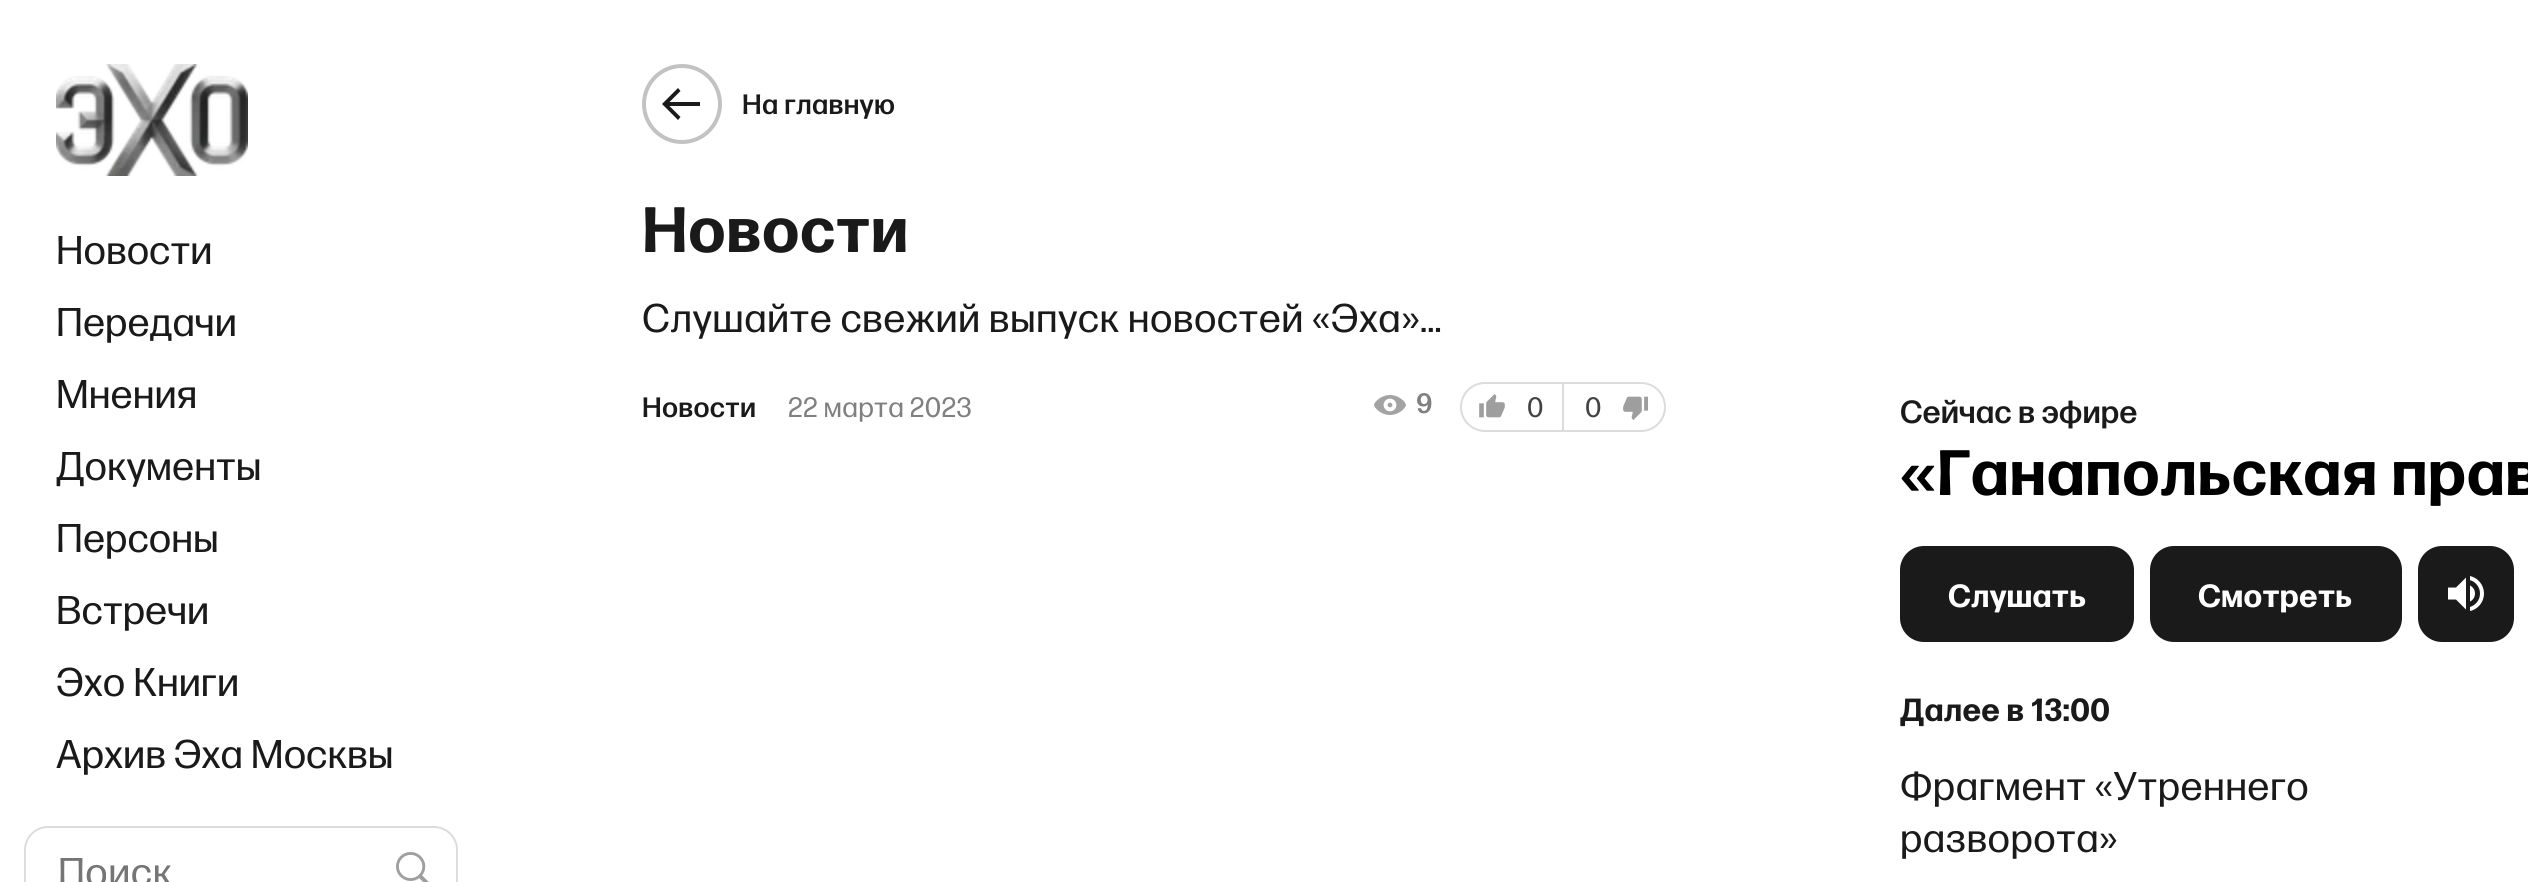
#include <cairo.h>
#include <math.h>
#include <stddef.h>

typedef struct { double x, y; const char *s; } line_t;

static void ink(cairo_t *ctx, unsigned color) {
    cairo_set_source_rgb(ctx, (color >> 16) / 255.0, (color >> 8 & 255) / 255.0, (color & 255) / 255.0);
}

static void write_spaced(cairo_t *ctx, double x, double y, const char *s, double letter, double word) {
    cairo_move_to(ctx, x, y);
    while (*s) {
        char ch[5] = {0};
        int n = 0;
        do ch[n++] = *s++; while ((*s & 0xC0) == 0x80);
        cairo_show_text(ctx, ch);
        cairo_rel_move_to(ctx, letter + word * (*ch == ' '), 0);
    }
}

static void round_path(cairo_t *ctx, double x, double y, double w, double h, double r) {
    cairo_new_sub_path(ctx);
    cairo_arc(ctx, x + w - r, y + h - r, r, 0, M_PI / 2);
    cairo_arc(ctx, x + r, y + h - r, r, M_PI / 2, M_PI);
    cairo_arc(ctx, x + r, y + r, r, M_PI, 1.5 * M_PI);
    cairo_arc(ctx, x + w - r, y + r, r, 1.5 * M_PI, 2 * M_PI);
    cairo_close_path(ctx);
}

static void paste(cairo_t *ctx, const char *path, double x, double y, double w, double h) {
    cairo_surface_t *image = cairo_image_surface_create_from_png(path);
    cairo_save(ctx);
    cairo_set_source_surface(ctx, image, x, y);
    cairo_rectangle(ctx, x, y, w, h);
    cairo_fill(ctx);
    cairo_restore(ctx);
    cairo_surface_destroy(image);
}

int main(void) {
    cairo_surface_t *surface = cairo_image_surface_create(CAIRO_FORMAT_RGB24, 2528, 882);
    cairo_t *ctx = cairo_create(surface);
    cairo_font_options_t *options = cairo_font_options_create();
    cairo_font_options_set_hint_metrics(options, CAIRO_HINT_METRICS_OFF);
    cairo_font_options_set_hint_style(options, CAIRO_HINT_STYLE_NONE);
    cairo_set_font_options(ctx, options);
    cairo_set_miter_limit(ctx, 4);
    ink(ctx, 0xFFFFFF);
    cairo_paint(ctx);
    paste(ctx, "media/1.png", 56, 64, 192, 112);
    cairo_select_font_face(ctx, "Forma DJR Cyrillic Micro", CAIRO_FONT_SLANT_NORMAL, CAIRO_FONT_WEIGHT_NORMAL);
    cairo_set_font_size(ctx, 40);
    ink(ctx, 0x1A1A1A);
    {
        static const line_t items[] = {
            {56, 264, "Новости"},
            {56, 336, "Передачи"},
            {56, 408, "Мнения"},
            {56, 480, "Документы"},
            {56, 552, "Персоны"},
            {56, 624, "Встречи"},
            {56, 696, "Эхо Книги"},
            {56, 768, "Архив Эха Москвы"},
        };
        for (size_t i = 0; i < sizeof items / sizeof *items; i++) {
            cairo_move_to(ctx, items[i].x, items[i].y);
            cairo_show_text(ctx, items[i].s);
        }
    }
    round_path(ctx, 25, 827, 432, 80, 23);
    ink(ctx, 0xDCDCDC);
    cairo_stroke(ctx);
    ink(ctx, 0x757575);
    write_spaced(ctx, 58, 886, "Поиск", 0.4, 0);
    paste(ctx, "media/2.png", 396, 852, 33, 30);
    cairo_arc(ctx, 682, 104, 38, 0, 2 * M_PI);
    ink(ctx, 0xC2C2C2);
    cairo_set_line_width(ctx, 4);
    cairo_stroke(ctx);
    ink(ctx, 0x1A1A1A);
    cairo_new_path(ctx);
    cairo_move_to(ctx, 700, 102);
    cairo_line_to(ctx, 700, 106);
    cairo_line_to(ctx, 669.5, 106);
    cairo_line_to(ctx, 680.5, 117);
    cairo_line_to(ctx, 678, 120);
    cairo_line_to(ctx, 662, 104);
    cairo_line_to(ctx, 678, 88);
    cairo_line_to(ctx, 680.5, 91);
    cairo_line_to(ctx, 669.5, 102);
    cairo_close_path(ctx);
    cairo_fill(ctx);
    cairo_select_font_face(ctx, "Forma DJR Cyrillic Micro Medium", CAIRO_FONT_SLANT_NORMAL, CAIRO_FONT_WEIGHT_NORMAL);
    cairo_set_font_size(ctx, 28);
    write_spaced(ctx, 742, 114, "На главную", 0.25, 0);
    cairo_select_font_face(ctx, "Forma DJR Cyrillic Micro", CAIRO_FONT_SLANT_NORMAL, CAIRO_FONT_WEIGHT_BOLD);
    cairo_set_font_size(ctx, 64);
    write_spaced(ctx, 642, 252, "Новости", 0.6, 0);
    cairo_select_font_face(ctx, "Forma DJR Cyrillic Micro", CAIRO_FONT_SLANT_NORMAL, CAIRO_FONT_WEIGHT_NORMAL);
    cairo_set_font_size(ctx, 40);
    write_spaced(ctx, 642, 332, "Слушайте свежий выпуск новостей «Эха»…", 0.4, 0);
    cairo_select_font_face(ctx, "Forma DJR Cyrillic Micro Medium", CAIRO_FONT_SLANT_NORMAL, CAIRO_FONT_WEIGHT_NORMAL);
    cairo_set_font_size(ctx, 28);
    write_spaced(ctx, 642, 417, "Новости", 0.25, 0);
    cairo_select_font_face(ctx, "Forma DJR Cyrillic Micro", CAIRO_FONT_SLANT_NORMAL, CAIRO_FONT_WEIGHT_NORMAL);
    ink(ctx, 0x808080);
    write_spaced(ctx, 788, 417, "22 марта 2023", 0.25, 0);
    paste(ctx, "media/3.png", 1374, 395, 32, 20);
    cairo_select_font_face(ctx, "Forma DJR Cyrillic Micro Medium", CAIRO_FONT_SLANT_NORMAL, CAIRO_FONT_WEIGHT_NORMAL);
    write_spaced(ctx, 1416, 413, "9", 0.25, 0);
    round_path(ctx, 1461, 383, 204, 48, 24);
    ink(ctx, 0xDCDCDC);
    cairo_set_line_width(ctx, 2);
    cairo_stroke(ctx);
    cairo_rectangle(ctx, 1562, 384, 2, 46);
    cairo_fill(ctx);
    paste(ctx, "media/4.png", 1479, 394, 26, 24);
    cairo_select_font_face(ctx, "Forma DJR Cyrillic Micro", CAIRO_FONT_SLANT_NORMAL, CAIRO_FONT_WEIGHT_NORMAL);
    ink(ctx, 0x434343);
    write_spaced(ctx, 1527, 417, "0", 0.25, 0);
    write_spaced(ctx, 1585, 417, "0", 0.25, 0);
    paste(ctx, "media/5.png", 1623, 396, 25, 24);
    cairo_select_font_face(ctx, "Forma DJR Cyrillic Micro Medium", CAIRO_FONT_SLANT_NORMAL, CAIRO_FONT_WEIGHT_NORMAL);
    cairo_set_font_size(ctx, 32);
    ink(ctx, 0x1A1A1A);
    cairo_move_to(ctx, 1900, 423);
    cairo_show_text(ctx, "Сейчас в эфире");
    cairo_select_font_face(ctx, "Forma DJR Cyrillic Micro", CAIRO_FONT_SLANT_NORMAL, CAIRO_FONT_WEIGHT_BOLD);
    cairo_set_font_size(ctx, 64);
    ink(ctx, 0x000000);
    write_spaced(ctx, 1900, 495, "«Ганапольская прав", 0.6, 0);
    ink(ctx, 0x1A1A1A);
    round_path(ctx, 1900, 546, 234, 96, 24);
    cairo_fill(ctx);
    cairo_set_font_size(ctx, 32);
    ink(ctx, 0xFFFFFF);
    write_spaced(ctx, 1948, 607, "Слушать", 0.25, 0);
    ink(ctx, 0x1A1A1A);
    round_path(ctx, 2150, 546, 252, 96, 24);
    cairo_fill(ctx);
    ink(ctx, 0xFFFFFF);
    write_spaced(ctx, 2198, 607, "Смотреть", 0.25, 0);
    ink(ctx, 0x1A1A1A);
    round_path(ctx, 2418, 546, 96, 96, 24);
    cairo_fill(ctx);
    paste(ctx, "media/6.png", 2448, 576, 36, 35);
    write_spaced(ctx, 1900, 721, "Далее в 13:00", 0.25, 0);
    cairo_select_font_face(ctx, "Forma DJR Cyrillic Micro", CAIRO_FONT_SLANT_NORMAL, CAIRO_FONT_WEIGHT_NORMAL);
    cairo_set_font_size(ctx, 40);
    write_spaced(ctx, 1900, 800, "Фрагмент «Утреннего", 0.4, 0);
    write_spaced(ctx, 1900, 852, "разворота»", 0.4, 0);
    cairo_surface_write_to_png(surface, "image.png");
    cairo_font_options_destroy(options);
    cairo_destroy(ctx);
    cairo_surface_destroy(surface);
    return 0;
}
